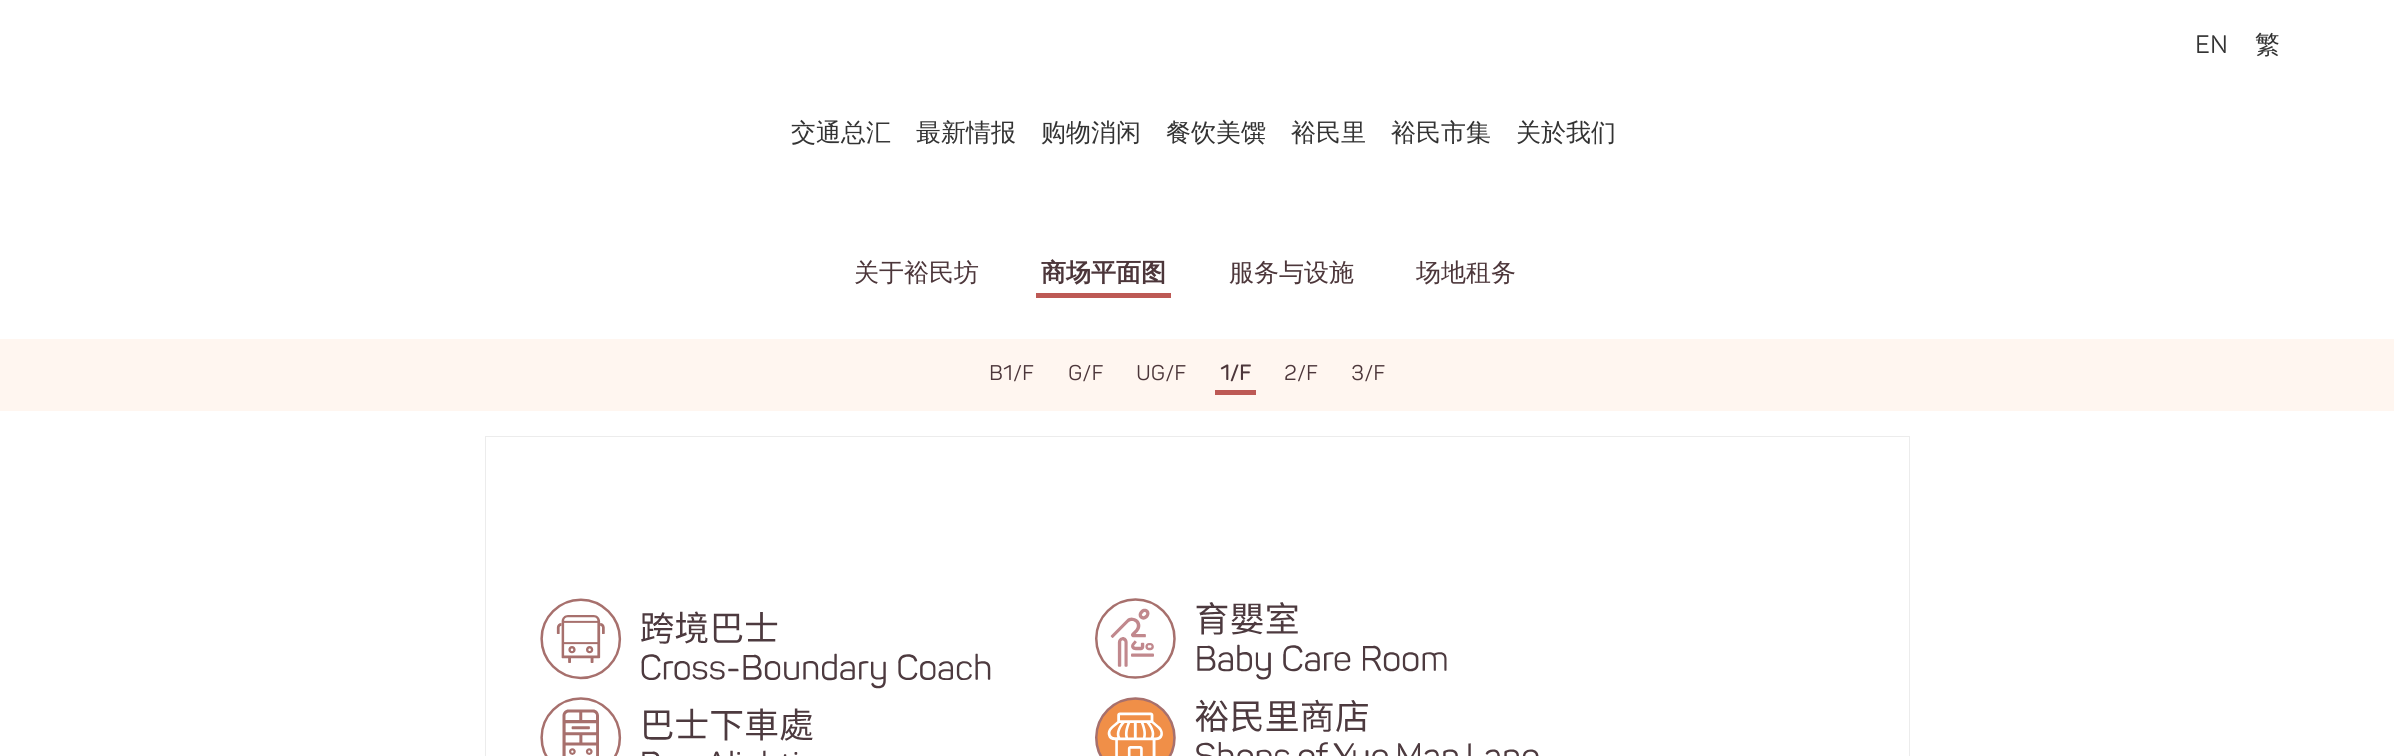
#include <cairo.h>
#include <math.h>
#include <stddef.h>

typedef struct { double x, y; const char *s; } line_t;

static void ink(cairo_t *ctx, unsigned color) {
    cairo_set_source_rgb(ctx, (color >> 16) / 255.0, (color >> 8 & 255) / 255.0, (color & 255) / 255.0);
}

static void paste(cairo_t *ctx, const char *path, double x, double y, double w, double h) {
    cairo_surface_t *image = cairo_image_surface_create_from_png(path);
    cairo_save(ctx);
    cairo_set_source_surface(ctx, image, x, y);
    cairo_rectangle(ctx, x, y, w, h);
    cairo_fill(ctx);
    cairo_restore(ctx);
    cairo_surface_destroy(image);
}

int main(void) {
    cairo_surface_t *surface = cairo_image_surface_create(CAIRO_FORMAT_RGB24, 2394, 756);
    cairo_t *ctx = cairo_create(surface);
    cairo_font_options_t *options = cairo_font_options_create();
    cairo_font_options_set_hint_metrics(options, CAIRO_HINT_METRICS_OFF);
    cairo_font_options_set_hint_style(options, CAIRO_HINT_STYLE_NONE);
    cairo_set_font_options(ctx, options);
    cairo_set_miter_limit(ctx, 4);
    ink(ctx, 0xFFFFFF);
    cairo_paint(ctx);
    cairo_select_font_face(ctx, "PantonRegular", CAIRO_FONT_SLANT_NORMAL, CAIRO_FONT_WEIGHT_NORMAL);
    cairo_set_font_size(ctx, 25);
    ink(ctx, 0x333333);
    cairo_move_to(ctx, 2195, 53);
    cairo_show_text(ctx, "EN");
    cairo_select_font_face(ctx, "WenQuanYi Zen Hei Medium", CAIRO_FONT_SLANT_NORMAL, CAIRO_FONT_WEIGHT_NORMAL);
    {
        static const line_t items[] = {
            {2255, 53, "繁"},
            {791, 141, "交通总汇"},
            {916, 141, "最新情报"},
            {1041, 141, "购物消闲"},
            {1166, 141, "餐饮美馔"},
            {1291, 141, "裕民里"},
            {1391, 141, "裕民市集"},
            {1516, 141, "关於我们"},
        };
        for (size_t i = 0; i < sizeof items / sizeof *items; i++) {
            cairo_move_to(ctx, items[i].x, items[i].y);
            cairo_show_text(ctx, items[i].s);
        }
    }
    ink(ctx, 0x4C363A);
    cairo_move_to(ctx, 854, 281);
    cairo_show_text(ctx, "关于裕民坊");
    cairo_select_font_face(ctx, "WenQuanYi Zen Hei", CAIRO_FONT_SLANT_NORMAL, CAIRO_FONT_WEIGHT_BOLD);
    cairo_move_to(ctx, 1041, 281);
    cairo_show_text(ctx, "商场平面图");
    ink(ctx, 0xBD5955);
    cairo_rectangle(ctx, 1036, 293, 135, 5);
    cairo_fill(ctx);
    cairo_select_font_face(ctx, "WenQuanYi Zen Hei Medium", CAIRO_FONT_SLANT_NORMAL, CAIRO_FONT_WEIGHT_NORMAL);
    ink(ctx, 0x4C363A);
    cairo_move_to(ctx, 1229, 281);
    cairo_show_text(ctx, "服务与设施");
    cairo_move_to(ctx, 1416, 281);
    cairo_show_text(ctx, "场地租务");
    ink(ctx, 0xFFF6F0);
    cairo_rectangle(ctx, 0, 339, 2394, 72);
    cairo_fill(ctx);
    cairo_select_font_face(ctx, "PantonRegular", CAIRO_FONT_SLANT_NORMAL, CAIRO_FONT_WEIGHT_NORMAL);
    cairo_set_font_size(ctx, 21);
    ink(ctx, 0x4C363A);
    {
        static const line_t items[] = {
            {989, 380, "B1/F"},
            {1068, 380, "G/F"},
            {1136, 380, "UG/F"},
        };
        for (size_t i = 0; i < sizeof items / sizeof *items; i++) {
            cairo_move_to(ctx, items[i].x, items[i].y);
            cairo_show_text(ctx, items[i].s);
        }
    }
    cairo_select_font_face(ctx, "PantonRegular", CAIRO_FONT_SLANT_NORMAL, CAIRO_FONT_WEIGHT_BOLD);
    cairo_move_to(ctx, 1220, 380);
    cairo_show_text(ctx, "1/F");
    ink(ctx, 0xBD5955);
    cairo_rectangle(ctx, 1215, 390, 41, 5);
    cairo_fill(ctx);
    cairo_select_font_face(ctx, "PantonRegular", CAIRO_FONT_SLANT_NORMAL, CAIRO_FONT_WEIGHT_NORMAL);
    ink(ctx, 0x4C363A);
    cairo_move_to(ctx, 1284, 380);
    cairo_show_text(ctx, "2/F");
    cairo_move_to(ctx, 1351, 380);
    cairo_show_text(ctx, "3/F");
    cairo_rectangle(ctx, 485.5, 436.5, 1424, 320);
    ink(ctx, 0xECECEC);
    cairo_set_line_width(ctx, 1);
    cairo_stroke(ctx);
    paste(ctx, "media/1.png", 540, 598, 999, 158);
    cairo_surface_write_to_png(surface, "image.png");
    cairo_font_options_destroy(options);
    cairo_destroy(ctx);
    cairo_surface_destroy(surface);
    return 0;
}
